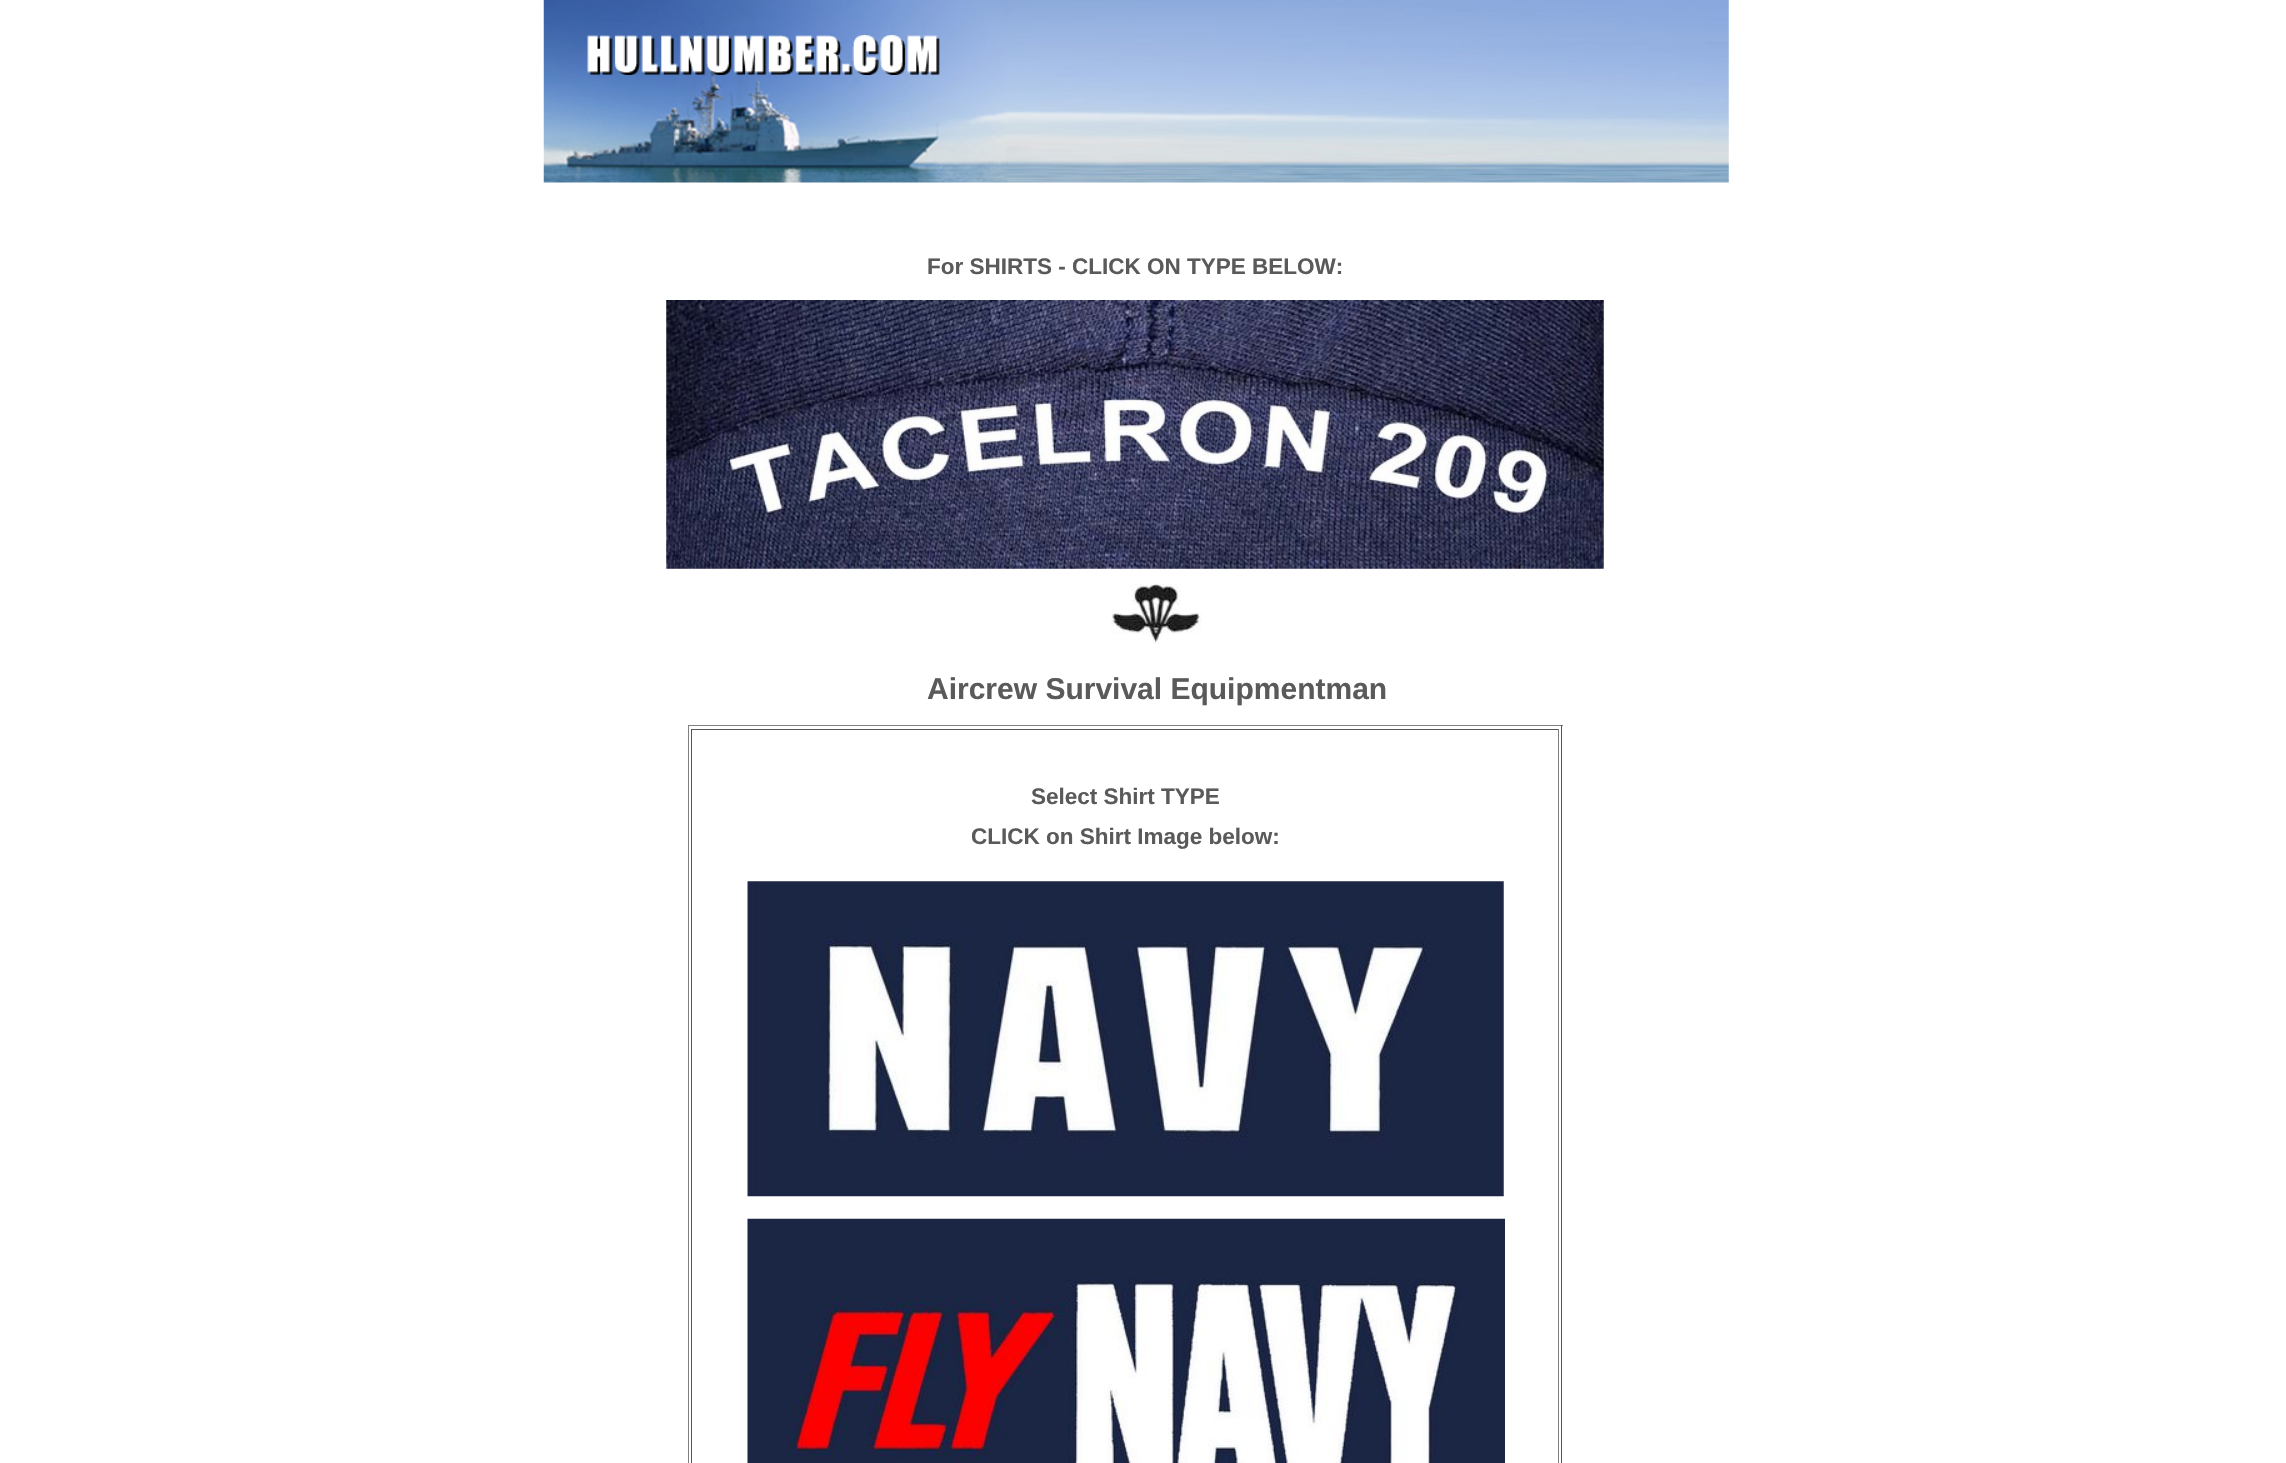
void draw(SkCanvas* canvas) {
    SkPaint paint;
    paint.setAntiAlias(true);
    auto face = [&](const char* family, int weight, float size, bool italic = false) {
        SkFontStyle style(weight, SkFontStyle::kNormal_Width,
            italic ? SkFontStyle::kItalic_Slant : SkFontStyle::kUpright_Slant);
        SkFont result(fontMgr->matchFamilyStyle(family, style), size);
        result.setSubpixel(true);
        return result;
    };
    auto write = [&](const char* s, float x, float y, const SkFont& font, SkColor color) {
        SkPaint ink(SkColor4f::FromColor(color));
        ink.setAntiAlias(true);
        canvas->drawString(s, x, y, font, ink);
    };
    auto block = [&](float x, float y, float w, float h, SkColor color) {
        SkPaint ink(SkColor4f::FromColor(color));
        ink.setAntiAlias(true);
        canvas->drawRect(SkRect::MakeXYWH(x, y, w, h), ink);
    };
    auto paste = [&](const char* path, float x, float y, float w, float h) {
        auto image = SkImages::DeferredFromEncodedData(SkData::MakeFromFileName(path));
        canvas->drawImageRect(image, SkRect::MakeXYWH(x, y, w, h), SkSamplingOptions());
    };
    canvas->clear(SK_ColorWHITE);
    paste("pic1.png", 543, 0, 1186, 183);
    paste("pic2.png", 587, 35, 353, 40);
    auto kFont1 = face("Liberation Sans", 700, 22.5f);
    write("For SHIRTS - CLICK ON TYPE BELOW:", 927, 274, kFont1, SkColorSetRGB(91, 90, 90));
    paste("pic3.png", 666, 300, 938, 269);
    paste("pic4.png", 1111, 583, 91, 61);
    auto kFont2 = face("Liberation Sans", 700, 30);
    write("Aircrew Survival Equipmentman", 927, 699, kFont2, SkColorSetRGB(91, 90, 90));
    block(688, 725, 875, 1, SkColorSetRGB(128, 128, 128));
    block(1561, 725, 1, 738, SkColorSetRGB(85, 85, 85));
    block(688, 725, 1, 738, SkColorSetRGB(128, 128, 128));
    block(691, 729, 868, 1, SkColorSetRGB(85, 85, 85));
    block(1558, 729, 1, 734, SkColorSetRGB(128, 128, 128));
    block(691, 729, 1, 734, SkColorSetRGB(85, 85, 85));
    write("Select Shirt TYPE", 1031, 804, kFont1, SkColorSetRGB(91, 90, 90));
    write("CLICK on Shirt Image below:", 971, 844, kFont1, SkColorSetRGB(91, 90, 90));
    paste("pic5.png", 747, 881, 757, 316);
    paste("pic6.png", 747, 1218, 758, 245);
}
